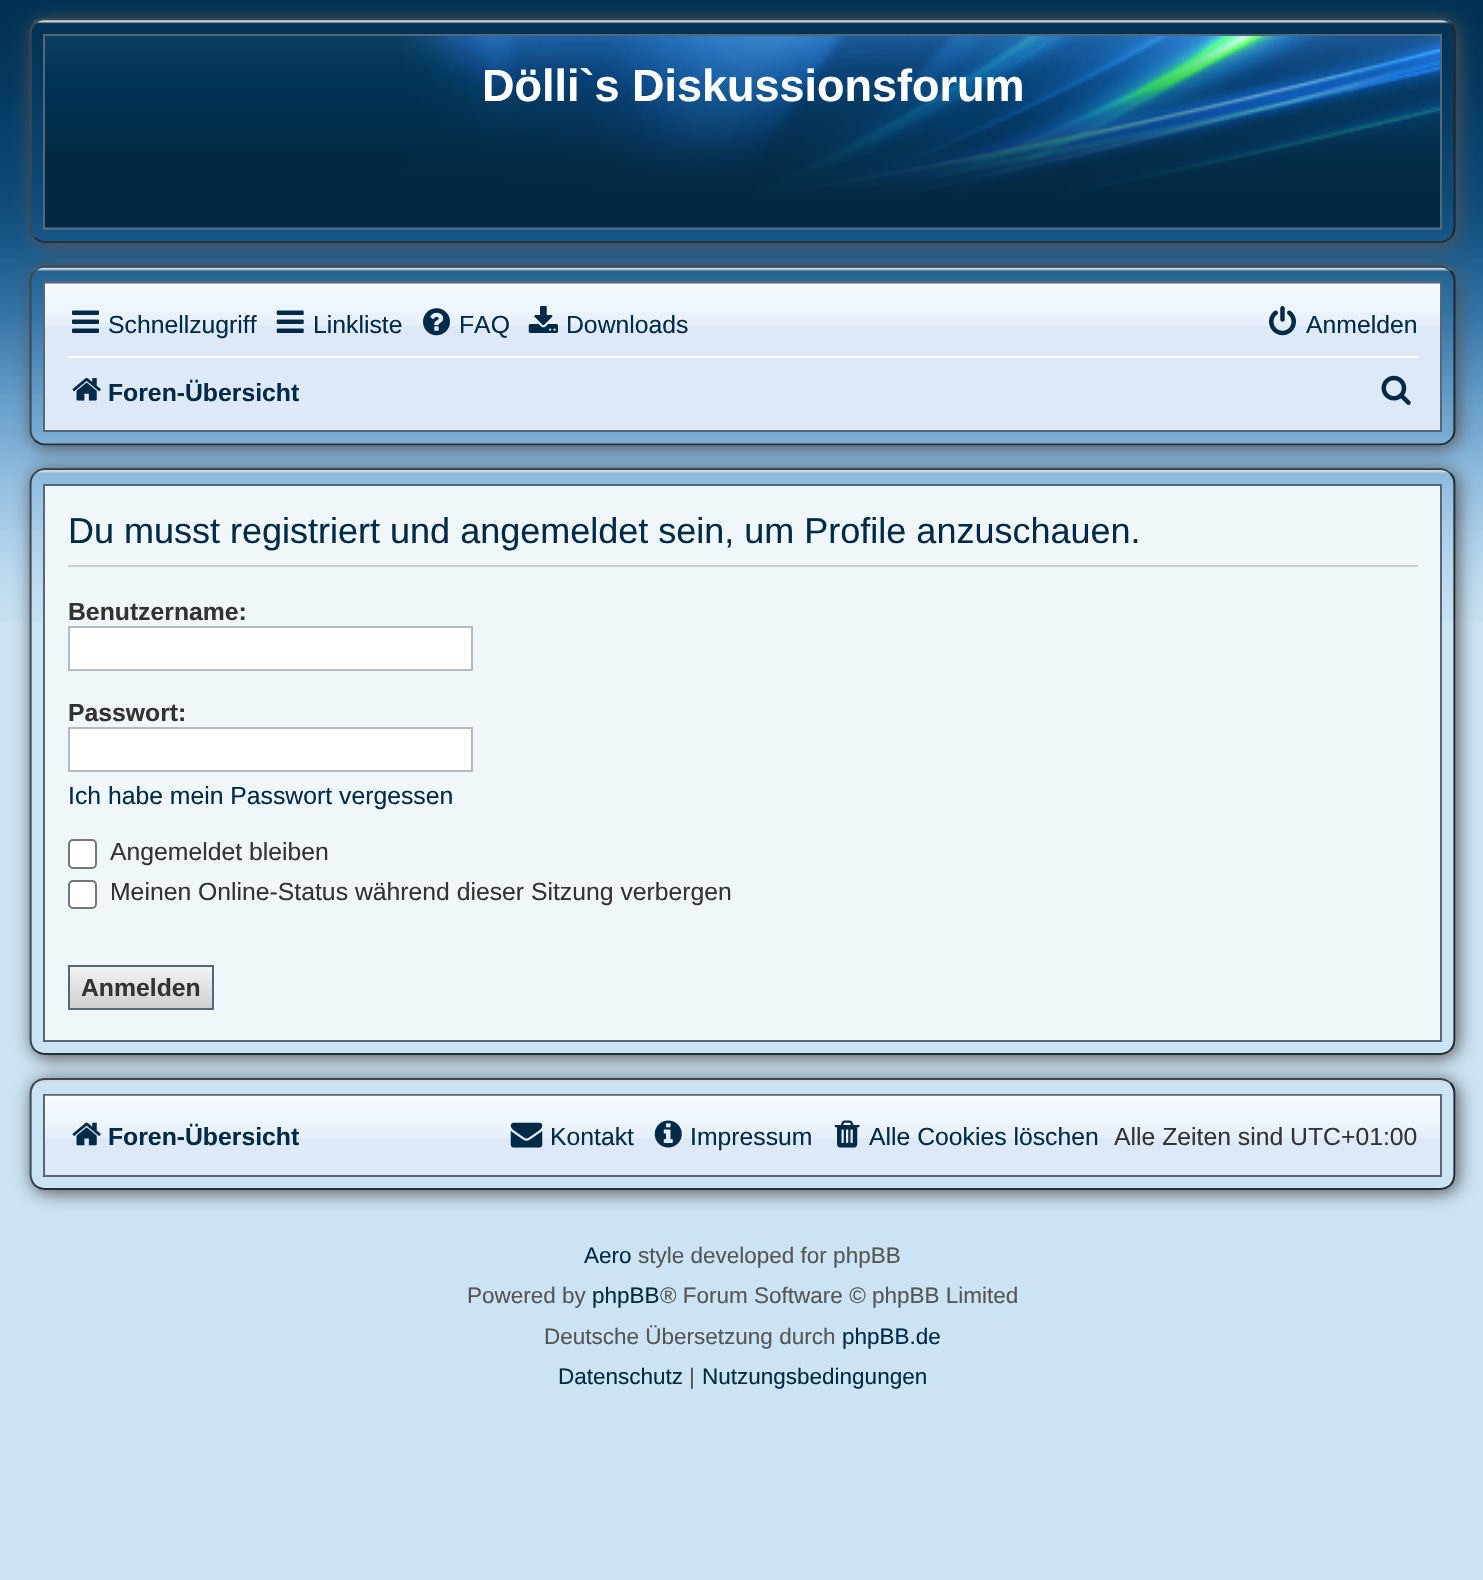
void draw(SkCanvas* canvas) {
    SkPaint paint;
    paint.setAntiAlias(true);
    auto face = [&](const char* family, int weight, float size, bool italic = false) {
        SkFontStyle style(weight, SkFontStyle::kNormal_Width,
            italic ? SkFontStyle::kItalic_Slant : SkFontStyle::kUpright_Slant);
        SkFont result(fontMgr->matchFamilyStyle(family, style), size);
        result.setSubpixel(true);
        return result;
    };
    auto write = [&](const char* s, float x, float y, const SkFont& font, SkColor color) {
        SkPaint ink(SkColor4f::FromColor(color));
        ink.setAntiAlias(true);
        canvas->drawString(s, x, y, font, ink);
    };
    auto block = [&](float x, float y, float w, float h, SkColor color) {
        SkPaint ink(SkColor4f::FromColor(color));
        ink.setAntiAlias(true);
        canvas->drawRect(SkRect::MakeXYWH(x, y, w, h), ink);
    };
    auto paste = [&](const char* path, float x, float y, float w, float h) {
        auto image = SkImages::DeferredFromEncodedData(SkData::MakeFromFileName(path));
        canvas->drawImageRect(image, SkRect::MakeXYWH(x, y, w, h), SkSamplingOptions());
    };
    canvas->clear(SkColorSetRGB(204, 227, 243));
    paste("pic1.png", 0, 0, 1483, 622);
    canvas->save();
    canvas->clipPath(SkPathBuilder(SkPathFillType::kEvenOdd).moveTo(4, 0).lineTo(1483, 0).lineTo(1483, 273).lineTo(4, 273).close().moveTo(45, 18).lineTo(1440, 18).cubicTo(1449, 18, 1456, 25, 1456, 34).lineTo(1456, 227).cubicTo(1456, 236, 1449, 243, 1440, 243).lineTo(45, 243).cubicTo(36, 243, 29, 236, 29, 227).lineTo(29, 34).cubicTo(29, 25, 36, 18, 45, 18).close().detach(), true);
    paint.setColor(SkColorSetRGB(85, 85, 85));
    paint.setMaskFilter(SkMaskFilter::MakeBlur(kNormal_SkBlurStyle, 9));
    canvas->drawRoundRect(SkRect::MakeXYWH(32, 20, 1426, 225), 16, 16, paint);
    paint.setMaskFilter(nullptr);
    canvas->restore();
    paste("pic2.png", 33, 20, 1419, 4);
    paint.setStyle(SkPaint::kStroke_Style);
    paint.setStrokeWidth(2.2f);
    paint.setColor(SkColorSetRGB(57, 72, 84));
    canvas->drawPath(SkPathBuilder().moveTo(34.5f, 23.5f).cubicTo(37.5f, 20.5f, 41, 19, 45, 19).lineTo(1440, 19).cubicTo(1444, 19, 1447.5f, 20.5f, 1450.5f, 23.5f).detach(), paint);
    paint.setColor(SkColorSetRGB(33, 41, 48));
    canvas->drawPath(SkPathBuilder().moveTo(1450.5f, 23.5f).cubicTo(1453, 26, 1454.5f, 30, 1454.5f, 33.5f).lineTo(1454.5f, 227).cubicTo(1454.5f, 231, 1453, 235, 1450.5f, 237.5f).detach(), paint);
    paint.setColor(SkColorSetRGB(38, 48, 56));
    canvas->drawPath(SkPathBuilder().moveTo(1450.5f, 237.5f).cubicTo(1447.5f, 240.5f, 1444, 242, 1440, 242).lineTo(45, 242).cubicTo(41, 242, 37.5f, 240.5f, 34.5f, 237.5f).detach(), paint);
    paint.setColor(SkColorSetRGB(58, 73, 85));
    canvas->drawPath(SkPathBuilder().moveTo(34.5f, 237.5f).cubicTo(32, 235, 30.5f, 231, 30.5f, 227).lineTo(30.5f, 34).cubicTo(30.5f, 30, 32, 26, 34.5f, 23.5f).detach(), paint);
    paint.setStrokeWidth(2);
    paint.setColor(SkColorSetRGB(86, 104, 119));
    canvas->drawRect(SkRect::MakeXYWH(44, 35, 1397, 194), paint);
    block(45, 150, 1395, 77, SkColorSetRGB(3, 41, 66));
    paste("pic3.png", 45, 36, 359, 114);
    paste("pic4.png", 404, 36, 1036, 157);
    auto kFont1 = face("Liberation Sans", 700, 45);
    write("Dölli`s Diskussionsforum", 482, 101, kFont1, SK_ColorWHITE);
    canvas->save();
    canvas->clipPath(SkPathBuilder(SkPathFillType::kEvenOdd).moveTo(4, 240).lineTo(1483, 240).lineTo(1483, 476).lineTo(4, 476).close().moveTo(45, 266).lineTo(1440, 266).cubicTo(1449, 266, 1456, 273, 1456, 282).lineTo(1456, 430).cubicTo(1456, 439, 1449, 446, 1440, 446).lineTo(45, 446).cubicTo(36, 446, 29, 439, 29, 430).lineTo(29, 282).cubicTo(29, 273, 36, 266, 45, 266).close().detach(), true);
    paint.setStyle(SkPaint::kFill_Style);
    paint.setColor(SkColorSetRGB(85, 85, 85));
    paint.setMaskFilter(SkMaskFilter::MakeBlur(kNormal_SkBlurStyle, 9));
    canvas->drawRoundRect(SkRect::MakeXYWH(32, 268, 1426, 180), 16, 16, paint);
    paint.setMaskFilter(nullptr);
    canvas->restore();
    paste("pic5.png", 33, 267, 1419, 4);
    paint.setStyle(SkPaint::kStroke_Style);
    paint.setStrokeWidth(2.2f);
    paint.setColor(SkColorSetRGB(57, 72, 84));
    canvas->drawPath(SkPathBuilder().moveTo(34.5f, 271).cubicTo(37.5f, 268, 41, 266.5f, 45, 266.5f).lineTo(1440, 266.5f).cubicTo(1444, 266.5f, 1447.5f, 268, 1450.5f, 271).detach(), paint);
    paint.setColor(SkColorSetRGB(33, 41, 48));
    canvas->drawPath(SkPathBuilder().moveTo(1450.5f, 271).cubicTo(1453, 273.5f, 1454.5f, 277.5f, 1454.5f, 281).lineTo(1454.5f, 430).cubicTo(1454.5f, 433.5f, 1453, 437.5f, 1450.5f, 440).detach(), paint);
    paint.setColor(SkColorSetRGB(38, 48, 56));
    canvas->drawPath(SkPathBuilder().moveTo(1450.5f, 440).cubicTo(1447.5f, 443, 1444, 444.5f, 1440, 444.5f).lineTo(45, 444.5f).cubicTo(41, 444.5f, 37.5f, 443, 34.5f, 440).detach(), paint);
    paint.setColor(SkColorSetRGB(58, 73, 85));
    canvas->drawPath(SkPathBuilder().moveTo(34.5f, 440).cubicTo(32, 437.5f, 30.5f, 433.5f, 30.5f, 430).lineTo(30.5f, 281).cubicTo(30.5f, 277.5f, 32, 273.5f, 34.5f, 271).detach(), paint);
    paint.setStrokeWidth(2);
    paint.setColor(SkColorSetRGB(86, 104, 119));
    canvas->drawRect(SkRect::MakeXYWH(44, 282, 1397, 149), paint);
    block(45, 326, 1395, 104, SkColorSetRGB(221, 233, 247));
    paste("pic6.png", 45, 283, 1395, 43);
    paste("pic7.png", 72, 310, 27, 23);
    auto kFont2 = face("Liberation Sans", 400, 24.75f);
    write("Schnellzugriff", 108, 333, kFont2, SkColorSetRGB(0, 42, 70));
    paste("pic8.png", 276, 310, 28, 23);
    write("Linkliste", 313, 333, kFont2, SkColorSetRGB(0, 42, 70));
    paste("pic9.png", 423, 308, 27, 28);
    write("FAQ", 459, 333, kFont2, SkColorSetRGB(0, 42, 70));
    paste("pic10.png", 528, 306, 30, 27);
    write("Downloads", 566, 333, kFont2, SkColorSetRGB(0, 42, 70));
    paste("pic11.png", 1269, 306, 27, 30);
    write("Anmelden", 1306, 333, kFont2, SkColorSetRGB(0, 42, 70));
    block(68, 356, 1350, 2, SK_ColorWHITE);
    paste("pic12.png", 72, 378, 29, 23);
    auto kFont3 = face("Liberation Sans", 700, 24.75f);
    write("Foren-Übersicht", 108, 401, kFont3, SkColorSetRGB(0, 42, 70));
    paste("pic13.png", 1381, 375, 30, 30);
    canvas->save();
    canvas->clipPath(SkPathBuilder(SkPathFillType::kEvenOdd).moveTo(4, 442).lineTo(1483, 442).lineTo(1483, 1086).lineTo(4, 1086).close().moveTo(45, 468).lineTo(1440, 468).cubicTo(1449, 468, 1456, 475, 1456, 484).lineTo(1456, 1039).cubicTo(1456, 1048, 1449, 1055, 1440, 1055).lineTo(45, 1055).cubicTo(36, 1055, 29, 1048, 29, 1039).lineTo(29, 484).cubicTo(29, 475, 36, 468, 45, 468).close().detach(), true);
    paint.setStyle(SkPaint::kFill_Style);
    paint.setColor(SkColorSetRGB(85, 85, 85));
    paint.setMaskFilter(SkMaskFilter::MakeBlur(kNormal_SkBlurStyle, 9));
    canvas->drawRoundRect(SkRect::MakeXYWH(32, 470, 1426, 588), 16, 16, paint);
    paint.setMaskFilter(nullptr);
    canvas->restore();
    paste("pic14.png", 33, 470, 1419, 4);
    paint.setStyle(SkPaint::kStroke_Style);
    paint.setStrokeWidth(2.2f);
    paint.setColor(SkColorSetRGB(57, 72, 84));
    canvas->drawPath(SkPathBuilder().moveTo(34.5f, 473.5f).cubicTo(37.5f, 470.5f, 41, 469, 45, 469).lineTo(1440, 469).cubicTo(1444, 469, 1447.5f, 470.5f, 1450.5f, 473.5f).detach(), paint);
    paint.setColor(SkColorSetRGB(33, 41, 48));
    canvas->drawPath(SkPathBuilder().moveTo(1450.5f, 473.5f).cubicTo(1453, 476, 1454.5f, 480, 1454.5f, 484).lineTo(1454.5f, 1039.5f).cubicTo(1454.5f, 1043.5f, 1453, 1047, 1450.5f, 1050).detach(), paint);
    paint.setColor(SkColorSetRGB(38, 48, 56));
    canvas->drawPath(SkPathBuilder().moveTo(1450.5f, 1050).cubicTo(1447.5f, 1052.5f, 1444, 1054, 1440, 1054).lineTo(45, 1054).cubicTo(41, 1054, 37.5f, 1052.5f, 34.5f, 1050).detach(), paint);
    paint.setColor(SkColorSetRGB(58, 73, 85));
    canvas->drawPath(SkPathBuilder().moveTo(34.5f, 1050).cubicTo(32, 1047, 30.5f, 1043.5f, 30.5f, 1039.5f).lineTo(30.5f, 484).cubicTo(30.5f, 480, 32, 476, 34.5f, 473.5f).detach(), paint);
    paint.setStrokeWidth(2);
    paint.setColor(SkColorSetRGB(86, 104, 119));
    canvas->drawRect(SkRect::MakeXYWH(44, 485, 1397, 556), paint);
    block(45, 486, 1395, 554, SkColorSetRGB(239, 247, 251));
    block(68, 565, 1350, 2, SkColorSetRGB(204, 204, 204));
    auto kFont4 = face("Liberation Sans", 400, 36);
    write("Du musst registriert und angemeldet sein, um Profile anzuschauen.", 68, 543, kFont4, SkColorSetRGB(0, 42, 70));
    write("Benutzername:", 68, 620, kFont3, SkColorSetRGB(51, 51, 51));
    paint.setStyle(SkPaint::kFill_Style);
    paint.setColor(SK_ColorWHITE);
    canvas->drawRect(SkRect::MakeXYWH(69, 627, 403, 43), paint);
    paint.setStyle(SkPaint::kStroke_Style);
    paint.setColor(SkColorSetRGB(180, 186, 192));
    canvas->drawRect(SkRect::MakeXYWH(69, 627, 403, 43), paint);
    write("Passwort:", 68, 721, kFont3, SkColorSetRGB(51, 51, 51));
    paint.setStyle(SkPaint::kFill_Style);
    paint.setColor(SK_ColorWHITE);
    canvas->drawRect(SkRect::MakeXYWH(69, 728, 403, 43), paint);
    paint.setStyle(SkPaint::kStroke_Style);
    paint.setColor(SkColorSetRGB(180, 186, 192));
    canvas->drawRect(SkRect::MakeXYWH(69, 728, 403, 43), paint);
    write("Ich habe mein Passwort vergessen", 68, 804, kFont2, SkColorSetRGB(0, 42, 70));
    paint.setStyle(SkPaint::kFill_Style);
    paint.setColor(SK_ColorWHITE);
    canvas->drawRoundRect(SkRect::MakeXYWH(69, 840, 27, 28), 4, 4, paint);
    paint.setStyle(SkPaint::kStroke_Style);
    paint.setColor(SkColorSetRGB(118, 118, 118));
    canvas->drawRoundRect(SkRect::MakeXYWH(69, 840, 27, 28), 4, 4, paint);
    write("Angemeldet bleiben", 110, 860, kFont2, SkColorSetRGB(51, 51, 51));
    paint.setStyle(SkPaint::kFill_Style);
    paint.setColor(SK_ColorWHITE);
    canvas->drawRoundRect(SkRect::MakeXYWH(69, 881, 27, 27), 4, 4, paint);
    paint.setStyle(SkPaint::kStroke_Style);
    paint.setColor(SkColorSetRGB(118, 118, 118));
    canvas->drawRoundRect(SkRect::MakeXYWH(69, 881, 27, 27), 4, 4, paint);
    write("Meinen Online-Status während dieser Sitzung verbergen", 110, 900, kFont2, SkColorSetRGB(51, 51, 51));
    block(70, 967, 142, 1, SkColorSetRGB(242, 242, 242));
    paint.setStyle(SkPaint::kFill_Style);
    {
        const SkColor colors[] = {SkColorSetRGB(242, 242, 242), SkColorSetRGB(207, 207, 207)};
        const float stops[] = {0, 1};
        const SkPoint ends[] = {{141, 968}, {141, 1008}};
        paint.setShader(SkGradientShader::MakeLinear(ends, colors, stops, 2, SkTileMode::kClamp));
        paint.setAlpha(255);
    }
    canvas->drawRect(SkRect::MakeXYWH(70, 968, 142, 40), paint);
    paint.setStyle(SkPaint::kStroke_Style);
    paint.setShader(nullptr);
    paint.setColor(SkColorSetRGB(86, 104, 119));
    canvas->drawRect(SkRect::MakeXYWH(69, 966, 144, 43), paint);
    write("Anmelden", 81, 996, kFont3, SkColorSetRGB(51, 51, 51));
    canvas->save();
    canvas->clipPath(SkPathBuilder(SkPathFillType::kEvenOdd).moveTo(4, 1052).lineTo(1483, 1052).lineTo(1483, 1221).lineTo(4, 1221).close().moveTo(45, 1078).lineTo(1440, 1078).cubicTo(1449, 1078, 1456, 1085, 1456, 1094).lineTo(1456, 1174).cubicTo(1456, 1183, 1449, 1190, 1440, 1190).lineTo(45, 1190).cubicTo(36, 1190, 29, 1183, 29, 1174).lineTo(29, 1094).cubicTo(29, 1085, 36, 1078, 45, 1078).close().detach(), true);
    paint.setStyle(SkPaint::kFill_Style);
    paint.setColor(SkColorSetRGB(85, 85, 85));
    paint.setMaskFilter(SkMaskFilter::MakeBlur(kNormal_SkBlurStyle, 9));
    canvas->drawRoundRect(SkRect::MakeXYWH(32, 1080, 1426, 113), 16, 16, paint);
    paint.setMaskFilter(nullptr);
    canvas->restore();
    paste("pic15.png", 33, 1080, 1419, 3);
    paint.setStyle(SkPaint::kStroke_Style);
    paint.setStrokeWidth(2.2f);
    paint.setColor(SkColorSetRGB(57, 72, 84));
    canvas->drawPath(SkPathBuilder().moveTo(34.5f, 1083).cubicTo(37.5f, 1080.5f, 41, 1079, 45, 1079).lineTo(1440, 1079).cubicTo(1444, 1079, 1447.5f, 1080.5f, 1450.5f, 1083).detach(), paint);
    paint.setColor(SkColorSetRGB(33, 41, 48));
    canvas->drawPath(SkPathBuilder().moveTo(1450.5f, 1083).cubicTo(1453, 1086, 1454.5f, 1089.5f, 1454.5f, 1093.5f).lineTo(1454.5f, 1174.5f).cubicTo(1454.5f, 1178.5f, 1453, 1182, 1450.5f, 1185).detach(), paint);
    paint.setColor(SkColorSetRGB(38, 48, 56));
    canvas->drawPath(SkPathBuilder().moveTo(1450.5f, 1185).cubicTo(1447.5f, 1187.5f, 1444, 1189, 1440, 1189).lineTo(45, 1189).cubicTo(41, 1189, 37.5f, 1187.5f, 34.5f, 1185).detach(), paint);
    paint.setColor(SkColorSetRGB(58, 73, 85));
    canvas->drawPath(SkPathBuilder().moveTo(34.5f, 1185).cubicTo(32, 1182, 30.5f, 1178.5f, 30.5f, 1174.5f).lineTo(30.5f, 1093.5f).cubicTo(30.5f, 1089.5f, 32, 1086, 34.5f, 1083).detach(), paint);
    paint.setStrokeWidth(2);
    paint.setColor(SkColorSetRGB(86, 104, 119));
    canvas->drawRect(SkRect::MakeXYWH(44, 1095, 1397, 81), paint);
    block(45, 1138, 1395, 37, SkColorSetRGB(221, 233, 247));
    paste("pic16.png", 45, 1095, 1395, 43);
    paste("pic17.png", 72, 1122, 29, 24);
    write("Foren-Übersicht", 108, 1145, kFont3, SkColorSetRGB(0, 42, 70));
    paste("pic18.png", 510, 1122, 33, 26);
    write("Kontakt", 550, 1145, kFont2, SkColorSetRGB(0, 42, 70));
    paste("pic19.png", 654, 1120, 28, 28);
    write("Impressum", 690, 1145, kFont2, SkColorSetRGB(0, 42, 70));
    paste("pic20.png", 834, 1120, 26, 28);
    write("Alle Cookies löschen", 869, 1145, kFont2, SkColorSetRGB(0, 42, 70));
    write("Alle Zeiten sind UTC+01:00", 1114, 1145, kFont2, SkColorSetRGB(51, 51, 51));
    auto kFont5 = face("Liberation Sans", 400, 22.5f);
    write("Aero", 584, 1263, kFont5, SkColorSetRGB(0, 42, 70));
    write("style developed for phpBB", 638, 1263, kFont5, SkColorSetRGB(85, 85, 85));
    write("Powered by", 467, 1303, kFont5, SkColorSetRGB(85, 85, 85));
    write("phpBB", 592, 1303, kFont5, SkColorSetRGB(0, 42, 70));
    write("® Forum Software © phpBB Limited", 660, 1303, kFont5, SkColorSetRGB(85, 85, 85));
    write("Deutsche Übersetzung durch", 544, 1344, kFont5, SkColorSetRGB(85, 85, 85));
    write("phpBB.de", 842, 1344, kFont5, SkColorSetRGB(0, 42, 70));
    write("Datenschutz", 558, 1384, kFont5, SkColorSetRGB(0, 42, 70));
    write("|", 689, 1384, kFont5, SkColorSetRGB(85, 85, 85));
    write("Nutzungsbedingungen", 702, 1384, kFont5, SkColorSetRGB(0, 42, 70));
}
